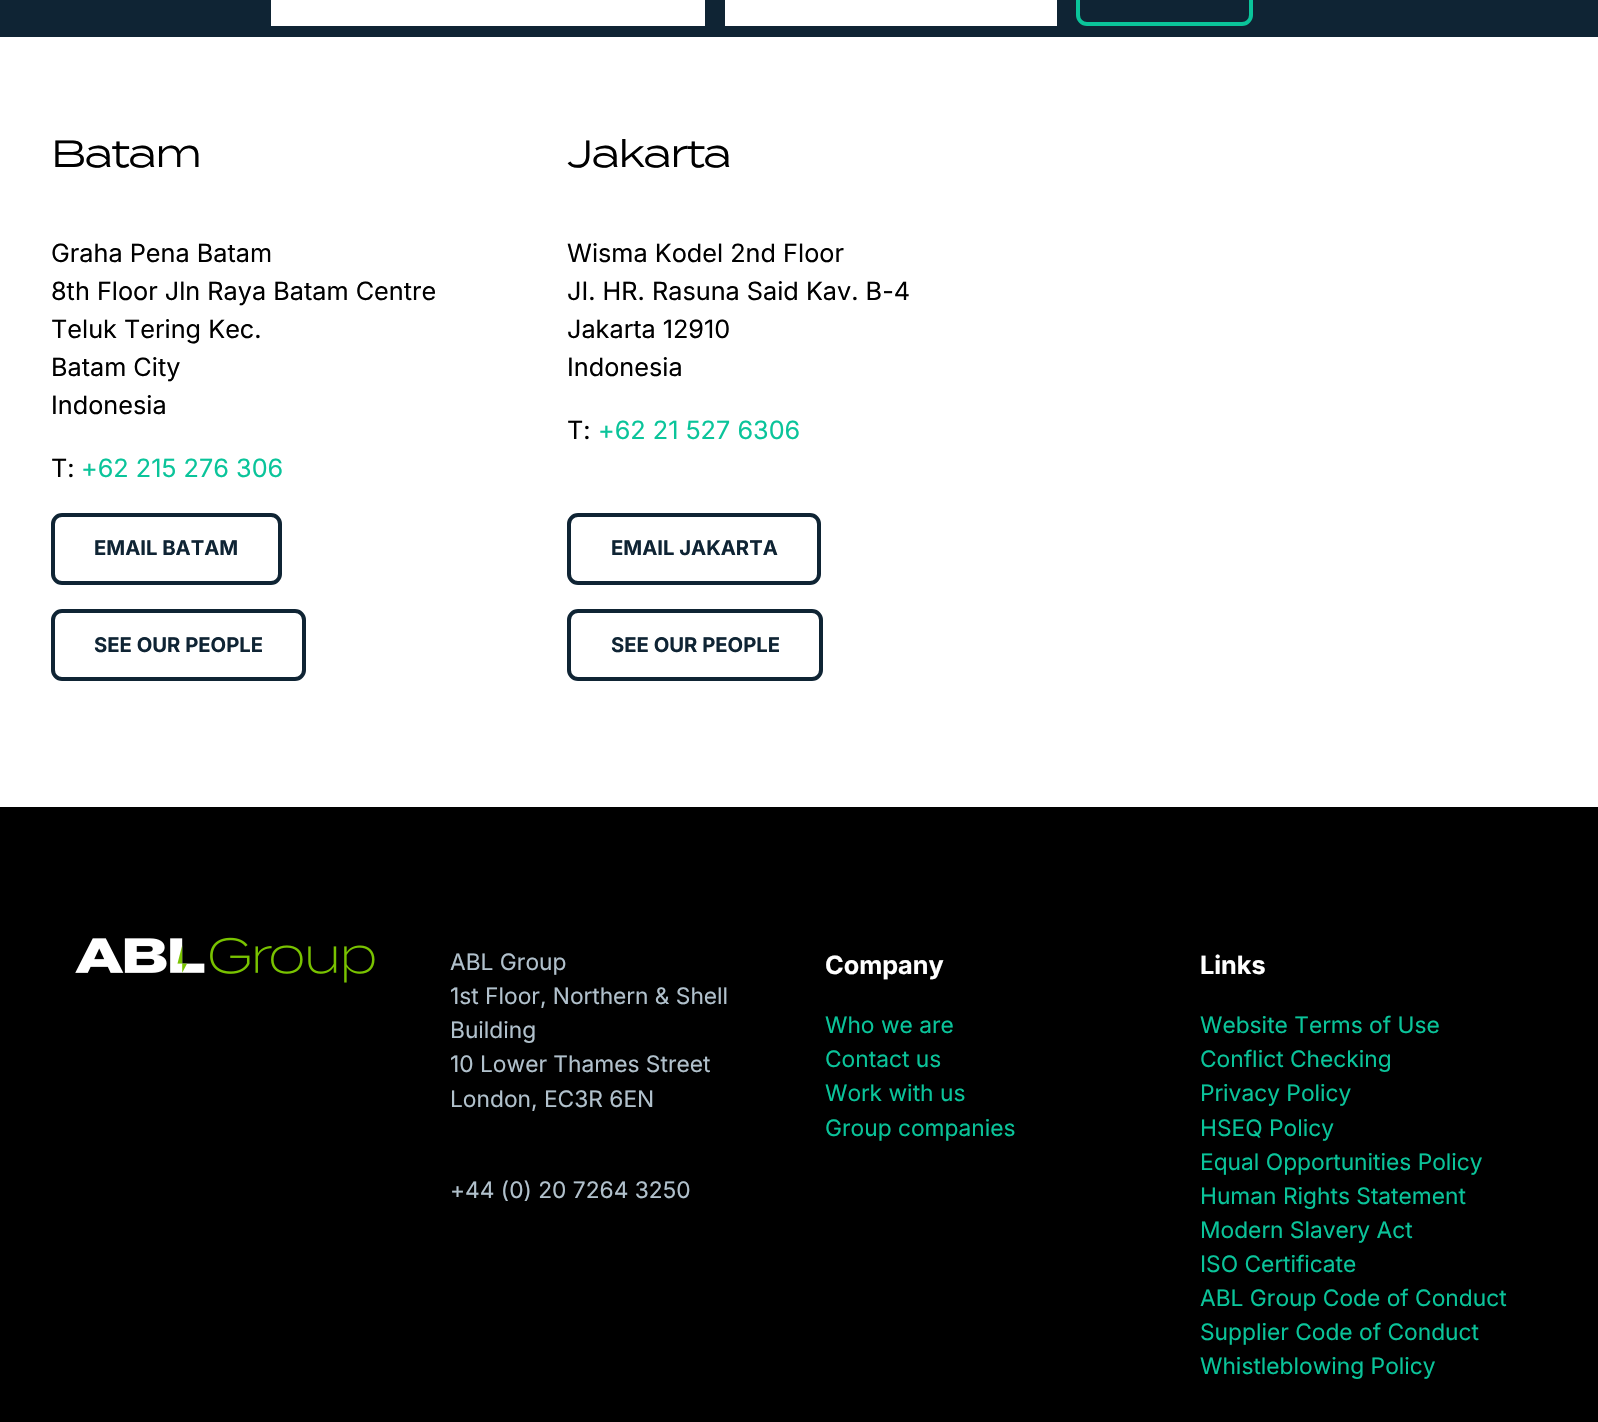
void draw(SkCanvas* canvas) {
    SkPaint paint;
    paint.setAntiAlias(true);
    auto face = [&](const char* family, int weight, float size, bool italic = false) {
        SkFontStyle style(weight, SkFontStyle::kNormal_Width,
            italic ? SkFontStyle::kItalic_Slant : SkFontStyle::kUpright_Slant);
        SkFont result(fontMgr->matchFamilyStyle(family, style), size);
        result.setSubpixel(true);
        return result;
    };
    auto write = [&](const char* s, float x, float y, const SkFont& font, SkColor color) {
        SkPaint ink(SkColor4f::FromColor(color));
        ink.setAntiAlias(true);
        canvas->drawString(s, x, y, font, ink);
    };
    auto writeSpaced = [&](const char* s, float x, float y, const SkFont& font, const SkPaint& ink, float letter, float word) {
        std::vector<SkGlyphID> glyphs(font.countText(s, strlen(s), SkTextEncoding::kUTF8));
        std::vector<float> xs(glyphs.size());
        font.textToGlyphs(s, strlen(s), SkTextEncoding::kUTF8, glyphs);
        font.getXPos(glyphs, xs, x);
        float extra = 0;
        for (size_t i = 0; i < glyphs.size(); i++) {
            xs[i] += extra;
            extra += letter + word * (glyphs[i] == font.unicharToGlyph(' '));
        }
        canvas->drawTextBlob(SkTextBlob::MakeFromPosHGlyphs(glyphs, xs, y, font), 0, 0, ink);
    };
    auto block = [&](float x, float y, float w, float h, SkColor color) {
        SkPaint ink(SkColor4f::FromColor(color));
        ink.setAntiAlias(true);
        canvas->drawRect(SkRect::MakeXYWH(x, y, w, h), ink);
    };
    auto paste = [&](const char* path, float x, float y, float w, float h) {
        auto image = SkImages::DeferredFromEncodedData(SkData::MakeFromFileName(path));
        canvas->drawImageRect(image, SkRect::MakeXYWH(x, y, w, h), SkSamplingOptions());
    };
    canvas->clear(SK_ColorWHITE);
    block(0, 0, 1598, 37, SkColorSetRGB(15, 36, 52));
    block(271, 0, 434, 26, SK_ColorWHITE);
    block(725, 0, 332, 26, SK_ColorWHITE);
    paint.setStyle(SkPaint::kStroke_Style);
    paint.setStrokeWidth(4);
    paint.setColor(SkColorSetRGB(10, 196, 154));
    canvas->drawRoundRect(SkRect::MakeXYWH(1078, -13, 173, 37), 9, 9, paint);
    auto kFont1 = face("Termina", 400, 38);
    paint.setStyle(SkPaint::kFill_Style);
    paint.setColor(SK_ColorBLACK);
    writeSpaced("Batam", 51, 167, kFont1, paint, -1.5f, 0);
    auto kFont2 = face("Inter", 400, 25.25f);
    write("Graha Pena Batam", 51, 262, kFont2, SK_ColorBLACK);
    write("8th Floor Jln Raya Batam Centre", 51, 300, kFont2, SK_ColorBLACK);
    write("Teluk Tering Kec.", 51, 338, kFont2, SK_ColorBLACK);
    write("Batam City", 51, 376, kFont2, SK_ColorBLACK);
    write("Indonesia", 51, 414, kFont2, SK_ColorBLACK);
    write("T:", 51, 477, kFont2, SK_ColorBLACK);
    write("+62 215 276 306", 81, 477, kFont2, SkColorSetRGB(10, 196, 154));
    paint.setStyle(SkPaint::kStroke_Style);
    paint.setColor(SkColorSetRGB(15, 36, 52));
    canvas->drawRoundRect(SkRect::MakeXYWH(53, 515, 227, 68), 9, 9, paint);
    auto kFont3 = face("Inter", 700, 20.25f);
    write("EMAIL BATAM", 94, 555, kFont3, SkColorSetRGB(15, 36, 52));
    canvas->drawRoundRect(SkRect::MakeXYWH(53, 611, 251, 68), 9, 9, paint);
    write("SEE OUR PEOPLE", 94, 652, kFont3, SkColorSetRGB(15, 36, 52));
    paint.setStyle(SkPaint::kFill_Style);
    paint.setColor(SK_ColorBLACK);
    writeSpaced("Jakarta", 567, 167, kFont1, paint, -1.5f, 0);
    write("Wisma Kodel 2nd Floor", 567, 262, kFont2, SK_ColorBLACK);
    write("JI. HR. Rasuna Said Kav. B-4", 567, 300, kFont2, SK_ColorBLACK);
    write("Jakarta 12910", 567, 338, kFont2, SK_ColorBLACK);
    write("Indonesia", 567, 376, kFont2, SK_ColorBLACK);
    write("T:", 567, 439, kFont2, SK_ColorBLACK);
    write("+62 21 527 6306", 598, 439, kFont2, SkColorSetRGB(10, 196, 154));
    paint.setStyle(SkPaint::kStroke_Style);
    paint.setColor(SkColorSetRGB(15, 36, 52));
    canvas->drawRoundRect(SkRect::MakeXYWH(569, 515, 250, 68), 9, 9, paint);
    write("EMAIL JAKARTA", 611, 555, kFont3, SkColorSetRGB(15, 36, 52));
    canvas->drawRoundRect(SkRect::MakeXYWH(569, 611, 252, 68), 9, 9, paint);
    write("SEE OUR PEOPLE", 611, 652, kFont3, SkColorSetRGB(15, 36, 52));
    block(0, 807, 1598, 615, SK_ColorBLACK);
    paste("pic1.png", 75, 937, 300, 46);
    auto kFont4 = face("Inter", 400, 22.75f);
    write("ABL Group", 450, 970, kFont4, SkColorSetRGB(177, 193, 204));
    write("1st Floor, Northern & Shell", 450, 1004, kFont4, SkColorSetRGB(177, 193, 204));
    write("Building", 450, 1038, kFont4, SkColorSetRGB(177, 193, 204));
    write("10 Lower Thames Street", 450, 1072, kFont4, SkColorSetRGB(177, 193, 204));
    write("London, EC3R 6EN", 450, 1107, kFont4, SkColorSetRGB(177, 193, 204));
    write("+44 (0) 20 7264 3250", 450, 1198, kFont4, SkColorSetRGB(177, 193, 204));
    auto kFont5 = face("Inter", 700, 25.25f);
    write("Company", 825, 974, kFont5, SK_ColorWHITE);
    write("Who we are", 825, 1033, kFont4, SkColorSetRGB(10, 196, 154));
    write("Contact us", 825, 1067, kFont4, SkColorSetRGB(10, 196, 154));
    write("Work with us", 825, 1101, kFont4, SkColorSetRGB(10, 196, 154));
    write("Group companies", 825, 1136, kFont4, SkColorSetRGB(10, 196, 154));
    write("Links", 1200, 974, kFont5, SK_ColorWHITE);
    write("Website Terms of Use", 1200, 1033, kFont4, SkColorSetRGB(10, 196, 154));
    write("Conflict Checking", 1200, 1067, kFont4, SkColorSetRGB(10, 196, 154));
    write("Privacy Policy", 1200, 1101, kFont4, SkColorSetRGB(10, 196, 154));
    write("HSEQ Policy", 1200, 1136, kFont4, SkColorSetRGB(10, 196, 154));
    write("Equal Opportunities Policy", 1200, 1170, kFont4, SkColorSetRGB(10, 196, 154));
    write("Human Rights Statement", 1200, 1204, kFont4, SkColorSetRGB(10, 196, 154));
    write("Modern Slavery Act", 1200, 1238, kFont4, SkColorSetRGB(10, 196, 154));
    write("ISO Certificate", 1200, 1272, kFont4, SkColorSetRGB(10, 196, 154));
    write("ABL Group Code of Conduct", 1200, 1306, kFont4, SkColorSetRGB(10, 196, 154));
    write("Supplier Code of Conduct", 1200, 1340, kFont4, SkColorSetRGB(10, 196, 154));
    write("Whistleblowing Policy", 1200, 1374, kFont4, SkColorSetRGB(10, 196, 154));
}
